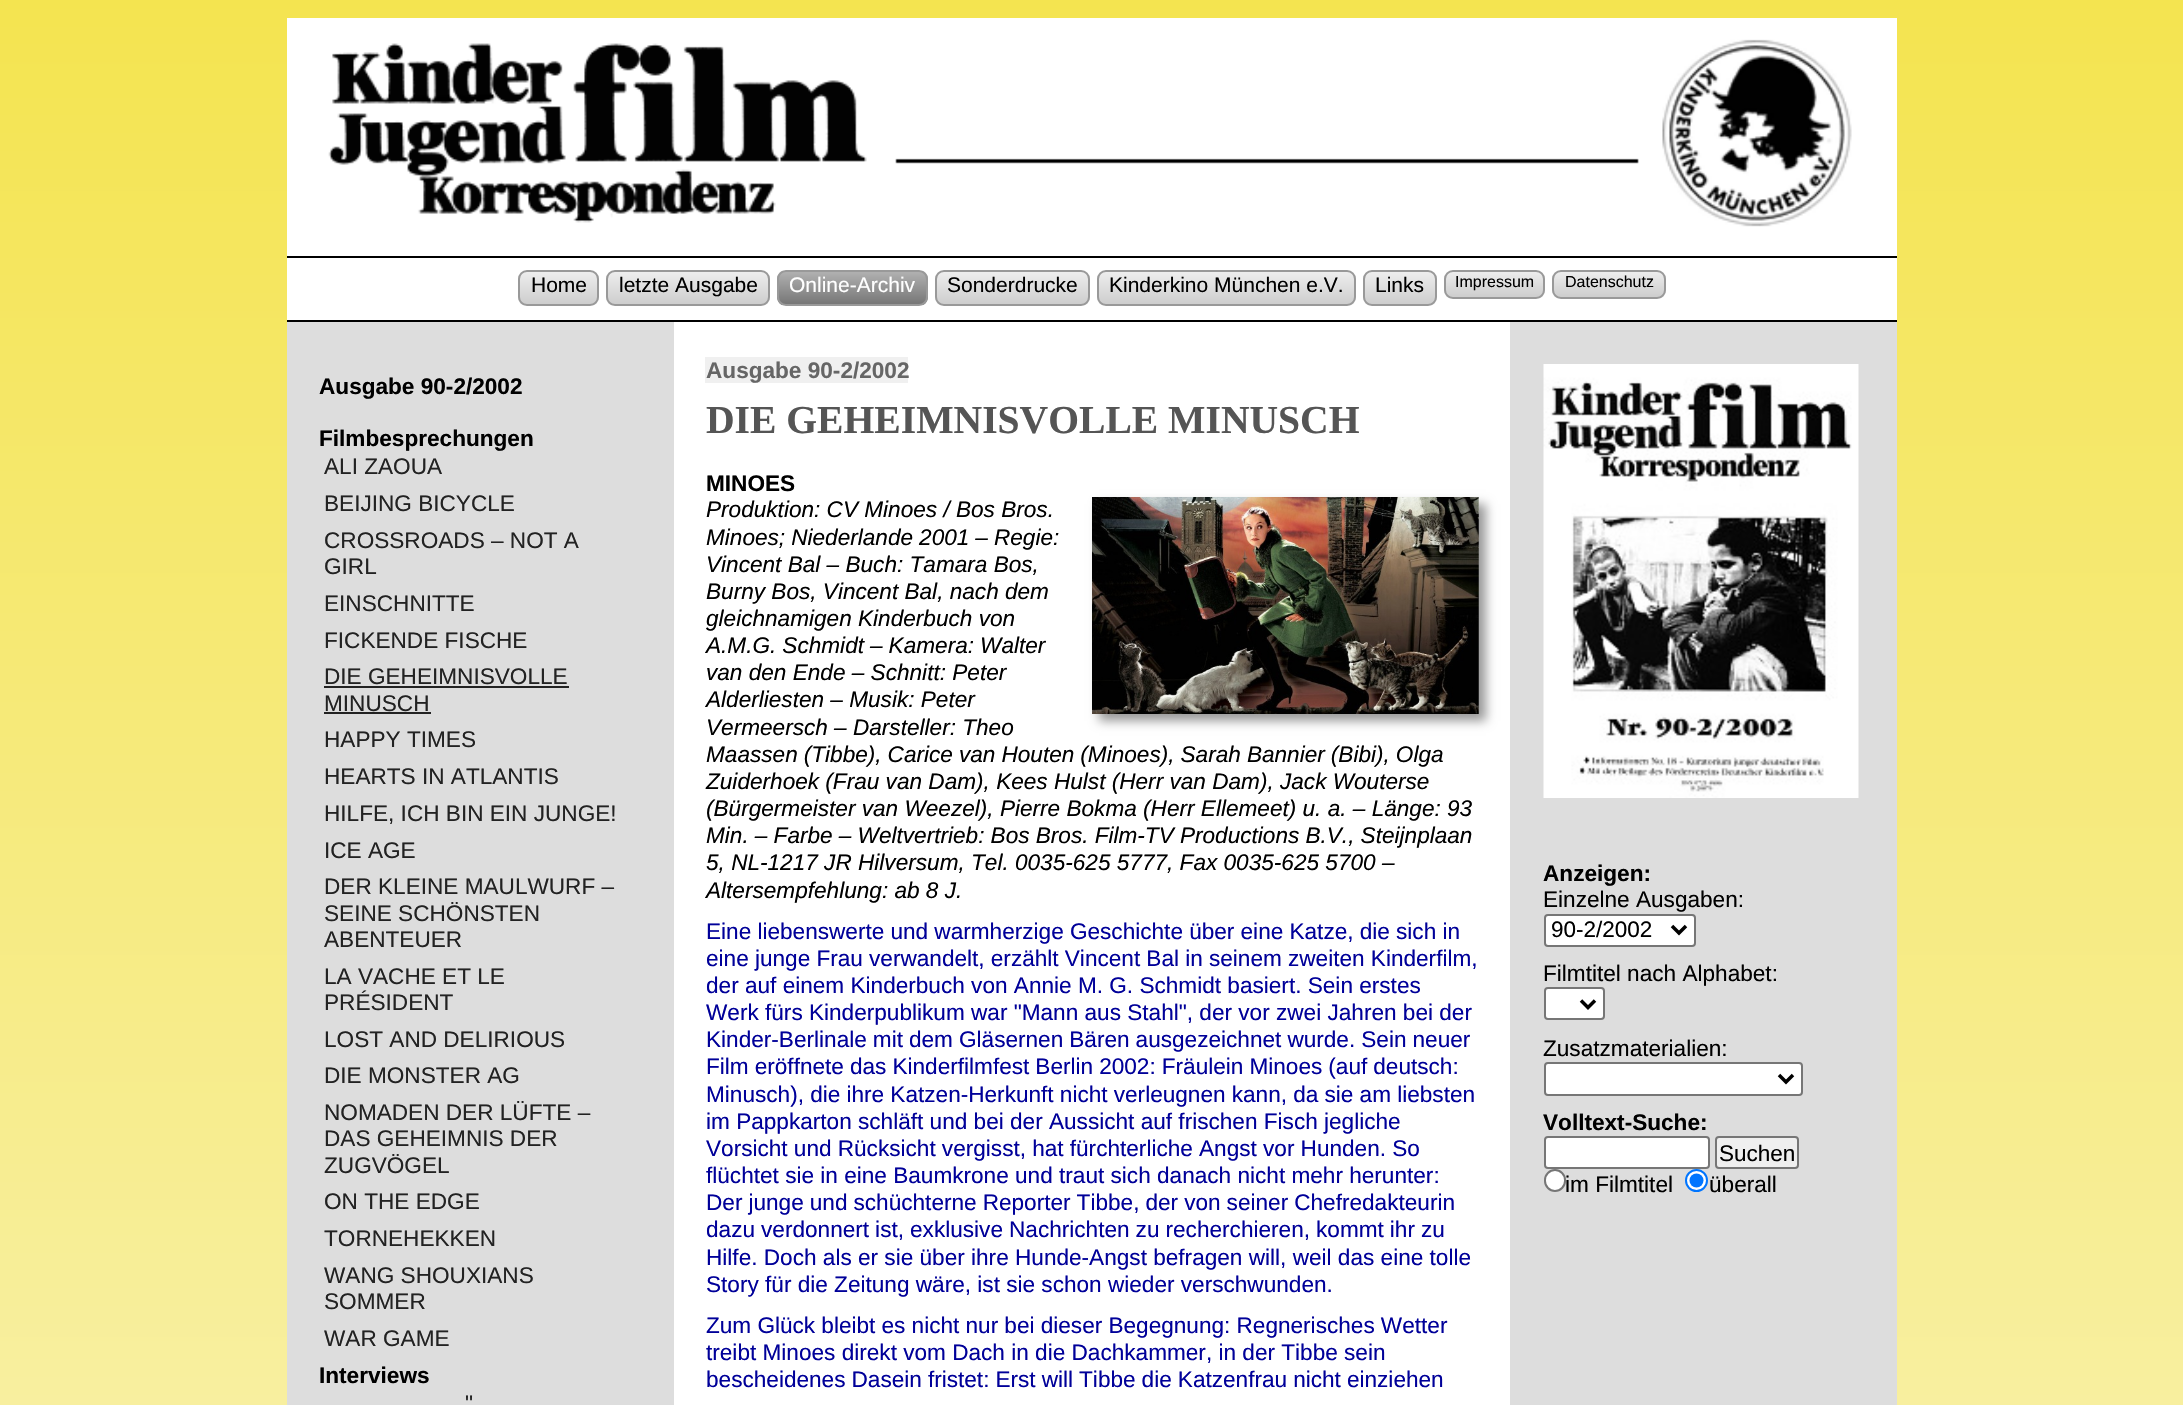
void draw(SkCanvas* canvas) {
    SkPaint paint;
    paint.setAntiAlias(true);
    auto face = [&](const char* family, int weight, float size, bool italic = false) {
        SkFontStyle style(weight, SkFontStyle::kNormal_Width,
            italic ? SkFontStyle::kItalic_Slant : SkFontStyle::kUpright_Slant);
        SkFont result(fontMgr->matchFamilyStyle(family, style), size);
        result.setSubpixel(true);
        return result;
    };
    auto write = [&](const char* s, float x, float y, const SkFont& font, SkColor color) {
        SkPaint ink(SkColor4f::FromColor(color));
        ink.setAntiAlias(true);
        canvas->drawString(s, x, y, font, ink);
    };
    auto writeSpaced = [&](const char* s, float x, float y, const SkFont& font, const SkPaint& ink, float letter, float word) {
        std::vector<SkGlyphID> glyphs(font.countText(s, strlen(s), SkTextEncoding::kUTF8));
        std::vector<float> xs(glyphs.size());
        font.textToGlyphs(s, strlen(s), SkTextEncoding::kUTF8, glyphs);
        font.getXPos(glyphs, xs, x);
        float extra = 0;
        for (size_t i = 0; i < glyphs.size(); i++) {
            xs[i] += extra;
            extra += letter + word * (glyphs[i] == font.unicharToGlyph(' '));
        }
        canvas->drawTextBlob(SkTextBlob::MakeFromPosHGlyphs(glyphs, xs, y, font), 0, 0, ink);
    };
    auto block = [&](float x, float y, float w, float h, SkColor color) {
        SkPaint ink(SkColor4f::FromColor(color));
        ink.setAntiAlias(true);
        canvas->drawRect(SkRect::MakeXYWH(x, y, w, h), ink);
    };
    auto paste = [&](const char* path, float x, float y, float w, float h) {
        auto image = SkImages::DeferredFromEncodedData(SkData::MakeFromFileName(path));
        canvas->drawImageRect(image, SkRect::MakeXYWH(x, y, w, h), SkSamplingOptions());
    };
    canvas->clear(SK_ColorWHITE);
    {
        const SkColor colors[] = {SkColorSetRGB(244, 228, 80), SkColorSetRGB(252, 252, 252)};
        const float stops[] = {0, 1};
        const SkPoint ends[] = {{1092, 0}, {1092, 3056}};
        paint.setShader(SkGradientShader::MakeLinear(ends, colors, stops, 2, SkTileMode::kClamp));
        paint.setAlpha(255);
    }
    canvas->drawRect(SkRect::MakeXYWH(0, 0, 2183, 1405), paint);
    block(287, 322, 1610, 1083, SkColorSetRGB(221, 221, 221));
    block(287, 18, 1610, 238, SK_ColorWHITE);
    paste("pic1.png", 328, 39, 1524, 188);
    block(287, 258, 1610, 62, SK_ColorWHITE);
    block(287, 256, 1610, 2, SK_ColorBLACK);
    block(287, 320, 1610, 2, SK_ColorBLACK);
    canvas->save();
    canvas->clipPath(SkPathBuilder().moveTo(527, 270).lineTo(590, 270).cubicTo(595, 270, 599, 274, 599, 279).lineTo(599, 297).cubicTo(599, 302, 595, 306, 590, 306).lineTo(527, 306).cubicTo(522, 306, 518, 302, 518, 297).lineTo(518, 279).cubicTo(518, 274, 522, 270, 527, 270).close().detach(), true);
    {
        const SkColor colors[] = {SkColorSetRGB(238, 238, 238), SkColorSetRGB(204, 204, 204)};
        const float stops[] = {0, 1};
        const SkPoint ends[] = {{558, 271}, {558, 305}};
        paint.setShader(SkGradientShader::MakeLinear(ends, colors, stops, 2, SkTileMode::kClamp));
        paint.setAlpha(255);
    }
    canvas->drawRect(SkRect::MakeXYWH(518, 271, 81, 34), paint);
    canvas->restore();
    paint.setStyle(SkPaint::kStroke_Style);
    paint.setStrokeWidth(2);
    paint.setShader(nullptr);
    paint.setColor(SkColorSetRGB(153, 153, 153));
    canvas->drawRoundRect(SkRect::MakeXYWH(519, 271, 79, 34), 8, 8, paint);
    auto kFont1 = face("Liberation Sans", 400, 21);
    write("Home", 531, 292, kFont1, SK_ColorBLACK);
    canvas->save();
    canvas->clipPath(SkPathBuilder().moveTo(615, 270).lineTo(761, 270).cubicTo(766, 270, 770, 274, 770, 279).lineTo(770, 297).cubicTo(770, 302, 766, 306, 761, 306).lineTo(615, 306).cubicTo(610, 306, 606, 302, 606, 297).lineTo(606, 279).cubicTo(606, 274, 610, 270, 615, 270).close().detach(), true);
    paint.setStyle(SkPaint::kFill_Style);
    {
        const SkColor colors[] = {SkColorSetRGB(238, 238, 238), SkColorSetRGB(204, 204, 204)};
        const float stops[] = {0, 1};
        const SkPoint ends[] = {{688, 271}, {688, 305}};
        paint.setShader(SkGradientShader::MakeLinear(ends, colors, stops, 2, SkTileMode::kClamp));
        paint.setAlpha(255);
    }
    canvas->drawRect(SkRect::MakeXYWH(606, 271, 164, 34), paint);
    canvas->restore();
    paint.setStyle(SkPaint::kStroke_Style);
    paint.setShader(nullptr);
    paint.setColor(SkColorSetRGB(153, 153, 153));
    canvas->drawRoundRect(SkRect::MakeXYWH(607, 271, 162, 34), 8, 8, paint);
    write("letzte Ausgabe", 619, 292, kFont1, SK_ColorBLACK);
    canvas->save();
    canvas->clipPath(SkPathBuilder().moveTo(786, 270).lineTo(919, 270).cubicTo(924, 270, 928, 274, 928, 279).lineTo(928, 297).cubicTo(928, 302, 924, 306, 919, 306).lineTo(786, 306).cubicTo(781, 306, 777, 302, 777, 297).lineTo(777, 279).cubicTo(777, 274, 781, 270, 786, 270).close().detach(), true);
    paint.setStyle(SkPaint::kFill_Style);
    {
        const SkColor colors[] = {SkColorSetRGB(178, 178, 178), SkColorSetRGB(117, 117, 117)};
        const float stops[] = {0, 1};
        const SkPoint ends[] = {{852, 271}, {852, 305}};
        paint.setShader(SkGradientShader::MakeLinear(ends, colors, stops, 2, SkTileMode::kClamp));
        paint.setAlpha(255);
    }
    canvas->drawRect(SkRect::MakeXYWH(777, 271, 151, 34), paint);
    canvas->restore();
    paint.setStyle(SkPaint::kStroke_Style);
    paint.setShader(nullptr);
    paint.setColor(SkColorSetRGB(153, 153, 153));
    canvas->drawRoundRect(SkRect::MakeXYWH(778, 271, 149, 34), 8, 8, paint);
    write("Online-Archiv", 789, 292, kFont1, SK_ColorWHITE);
    canvas->save();
    canvas->clipPath(SkPathBuilder().moveTo(944, 270).lineTo(1081, 270).cubicTo(1086, 270, 1090, 274, 1090, 279).lineTo(1090, 297).cubicTo(1090, 302, 1086, 306, 1081, 306).lineTo(944, 306).cubicTo(939, 306, 935, 302, 935, 297).lineTo(935, 279).cubicTo(935, 274, 939, 270, 944, 270).close().detach(), true);
    paint.setStyle(SkPaint::kFill_Style);
    {
        const SkColor colors[] = {SkColorSetRGB(238, 238, 238), SkColorSetRGB(204, 204, 204)};
        const float stops[] = {0, 1};
        const SkPoint ends[] = {{1012, 271}, {1012, 305}};
        paint.setShader(SkGradientShader::MakeLinear(ends, colors, stops, 2, SkTileMode::kClamp));
        paint.setAlpha(255);
    }
    canvas->drawRect(SkRect::MakeXYWH(935, 271, 155, 34), paint);
    canvas->restore();
    paint.setStyle(SkPaint::kStroke_Style);
    paint.setShader(nullptr);
    paint.setColor(SkColorSetRGB(153, 153, 153));
    canvas->drawRoundRect(SkRect::MakeXYWH(936, 271, 153, 34), 8, 8, paint);
    write("Sonderdrucke", 947, 292, kFont1, SK_ColorBLACK);
    canvas->save();
    canvas->clipPath(SkPathBuilder().moveTo(1106, 270).lineTo(1347, 270).cubicTo(1352, 270, 1356, 274, 1356, 279).lineTo(1356, 297).cubicTo(1356, 302, 1352, 306, 1347, 306).lineTo(1106, 306).cubicTo(1101, 306, 1097, 302, 1097, 297).lineTo(1097, 279).cubicTo(1097, 274, 1101, 270, 1106, 270).close().detach(), true);
    paint.setStyle(SkPaint::kFill_Style);
    {
        const SkColor colors[] = {SkColorSetRGB(238, 238, 238), SkColorSetRGB(204, 204, 204)};
        const float stops[] = {0, 1};
        const SkPoint ends[] = {{1227, 271}, {1227, 305}};
        paint.setShader(SkGradientShader::MakeLinear(ends, colors, stops, 2, SkTileMode::kClamp));
        paint.setAlpha(255);
    }
    canvas->drawRect(SkRect::MakeXYWH(1097, 271, 259, 34), paint);
    canvas->restore();
    paint.setStyle(SkPaint::kStroke_Style);
    paint.setShader(nullptr);
    paint.setColor(SkColorSetRGB(153, 153, 153));
    canvas->drawRoundRect(SkRect::MakeXYWH(1098, 271, 257, 34), 8, 8, paint);
    write("Kinderkino München e.V.", 1109, 292, kFont1, SK_ColorBLACK);
    canvas->save();
    canvas->clipPath(SkPathBuilder().moveTo(1372, 270).lineTo(1428, 270).cubicTo(1433, 270, 1437, 274, 1437, 279).lineTo(1437, 297).cubicTo(1437, 302, 1433, 306, 1428, 306).lineTo(1372, 306).cubicTo(1367, 306, 1363, 302, 1363, 297).lineTo(1363, 279).cubicTo(1363, 274, 1367, 270, 1372, 270).close().detach(), true);
    paint.setStyle(SkPaint::kFill_Style);
    {
        const SkColor colors[] = {SkColorSetRGB(238, 238, 238), SkColorSetRGB(204, 204, 204)};
        const float stops[] = {0, 1};
        const SkPoint ends[] = {{1400, 271}, {1400, 305}};
        paint.setShader(SkGradientShader::MakeLinear(ends, colors, stops, 2, SkTileMode::kClamp));
        paint.setAlpha(255);
    }
    canvas->drawRect(SkRect::MakeXYWH(1363, 271, 74, 34), paint);
    canvas->restore();
    paint.setStyle(SkPaint::kStroke_Style);
    paint.setShader(nullptr);
    paint.setColor(SkColorSetRGB(153, 153, 153));
    canvas->drawRoundRect(SkRect::MakeXYWH(1364, 271, 72, 34), 8, 8, paint);
    write("Links", 1375, 292, kFont1, SK_ColorBLACK);
    canvas->save();
    canvas->clipPath(SkPathBuilder().moveTo(1453, 270).lineTo(1536, 270).cubicTo(1541, 270, 1545, 274, 1545, 279).lineTo(1545, 290).cubicTo(1545, 295, 1541, 299, 1536, 299).lineTo(1453, 299).cubicTo(1448, 299, 1444, 295, 1444, 290).lineTo(1444, 279).cubicTo(1444, 274, 1448, 270, 1453, 270).close().detach(), true);
    paint.setStyle(SkPaint::kFill_Style);
    {
        const SkColor colors[] = {SkColorSetRGB(238, 238, 238), SkColorSetRGB(204, 204, 204)};
        const float stops[] = {0, 1};
        const SkPoint ends[] = {{1495, 271}, {1495, 298}};
        paint.setShader(SkGradientShader::MakeLinear(ends, colors, stops, 2, SkTileMode::kClamp));
        paint.setAlpha(255);
    }
    canvas->drawRect(SkRect::MakeXYWH(1444, 271, 101, 27), paint);
    canvas->restore();
    paint.setStyle(SkPaint::kStroke_Style);
    paint.setShader(nullptr);
    paint.setColor(SkColorSetRGB(153, 153, 153));
    canvas->drawRoundRect(SkRect::MakeXYWH(1445, 271, 99, 27), 8, 8, paint);
    auto kFont2 = face("Liberation Sans", 400, 16);
    write("Impressum", 1455, 287, kFont2, SK_ColorBLACK);
    canvas->save();
    canvas->clipPath(SkPathBuilder().moveTo(1561, 270).lineTo(1657, 270).cubicTo(1662, 270, 1666, 274, 1666, 279).lineTo(1666, 290).cubicTo(1666, 295, 1662, 299, 1657, 299).lineTo(1561, 299).cubicTo(1556, 299, 1552, 295, 1552, 290).lineTo(1552, 279).cubicTo(1552, 274, 1556, 270, 1561, 270).close().detach(), true);
    paint.setStyle(SkPaint::kFill_Style);
    {
        const SkColor colors[] = {SkColorSetRGB(238, 238, 238), SkColorSetRGB(204, 204, 204)};
        const float stops[] = {0, 1};
        const SkPoint ends[] = {{1609, 271}, {1609, 298}};
        paint.setShader(SkGradientShader::MakeLinear(ends, colors, stops, 2, SkTileMode::kClamp));
        paint.setAlpha(255);
    }
    canvas->drawRect(SkRect::MakeXYWH(1552, 271, 114, 27), paint);
    canvas->restore();
    paint.setStyle(SkPaint::kStroke_Style);
    paint.setShader(nullptr);
    paint.setColor(SkColorSetRGB(153, 153, 153));
    canvas->drawRoundRect(SkRect::MakeXYWH(1553, 271, 112, 27), 8, 8, paint);
    write("Datenschutz", 1565, 287, kFont2, SK_ColorBLACK);
    auto kFont3 = face("Liberation Sans", 700, 22.6f);
    write("Ausgabe 90-2/2002", 319, 394, kFont3, SK_ColorBLACK);
    write("Filmbesprechungen", 319, 446, kFont3, SK_ColorBLACK);
    auto kFont4 = face("Liberation Sans", 400, 22.6f);
    write("ALI ZAOUA", 324, 474, kFont4, SkColorSetRGB(34, 34, 34));
    write("BEIJING BICYCLE", 324, 511, kFont4, SkColorSetRGB(34, 34, 34));
    write("CROSSROADS – NOT A", 324, 548, kFont4, SkColorSetRGB(34, 34, 34));
    write("GIRL", 324, 574, kFont4, SkColorSetRGB(34, 34, 34));
    write("EINSCHNITTE", 324, 611, kFont4, SkColorSetRGB(34, 34, 34));
    write("FICKENDE FISCHE", 324, 648, kFont4, SkColorSetRGB(34, 34, 34));
    write("DIE GEHEIMNISVOLLE", 324, 684, kFont4, SkColorSetRGB(34, 34, 34));
    block(324, 686, 245, 2, SkColorSetRGB(34, 34, 34));
    write("MINUSCH", 324, 711, kFont4, SkColorSetRGB(34, 34, 34));
    block(324, 712, 107, 2, SkColorSetRGB(34, 34, 34));
    write("HAPPY TIMES", 324, 747, kFont4, SkColorSetRGB(34, 34, 34));
    write("HEARTS IN ATLANTIS", 324, 784, kFont4, SkColorSetRGB(34, 34, 34));
    write("HILFE, ICH BIN EIN JUNGE!", 324, 821, kFont4, SkColorSetRGB(34, 34, 34));
    write("ICE AGE", 324, 858, kFont4, SkColorSetRGB(34, 34, 34));
    write("DER KLEINE MAULWURF –", 324, 894, kFont4, SkColorSetRGB(34, 34, 34));
    write("SEINE SCHÖNSTEN", 324, 921, kFont4, SkColorSetRGB(34, 34, 34));
    write("ABENTEUER", 324, 947, kFont4, SkColorSetRGB(34, 34, 34));
    write("LA VACHE ET LE", 324, 984, kFont4, SkColorSetRGB(34, 34, 34));
    write("PRÉSIDENT", 324, 1010, kFont4, SkColorSetRGB(34, 34, 34));
    write("LOST AND DELIRIOUS", 324, 1047, kFont4, SkColorSetRGB(34, 34, 34));
    write("DIE MONSTER AG", 324, 1083, kFont4, SkColorSetRGB(34, 34, 34));
    write("NOMADEN DER LÜFTE –", 324, 1120, kFont4, SkColorSetRGB(34, 34, 34));
    write("DAS GEHEIMNIS DER", 324, 1146, kFont4, SkColorSetRGB(34, 34, 34));
    write("ZUGVÖGEL", 324, 1173, kFont4, SkColorSetRGB(34, 34, 34));
    write("ON THE EDGE", 324, 1209, kFont4, SkColorSetRGB(34, 34, 34));
    write("TORNEHEKKEN", 324, 1246, kFont4, SkColorSetRGB(34, 34, 34));
    write("WANG SHOUXIANS", 324, 1283, kFont4, SkColorSetRGB(34, 34, 34));
    write("SOMMER", 324, 1309, kFont4, SkColorSetRGB(34, 34, 34));
    write("WAR GAME", 324, 1346, kFont4, SkColorSetRGB(34, 34, 34));
    write("Interviews", 319, 1383, kFont3, SK_ColorBLACK);
    write("\"", 465, 1411, kFont4, SkColorSetRGB(34, 34, 34));
    block(674, 322, 836, 1083, SK_ColorWHITE);
    block(705, 357, 203, 26, SkColorSetRGB(240, 240, 240));
    write("Ausgabe 90-2/2002", 706, 378, kFont3, SkColorSetRGB(102, 102, 102));
    auto kFont5 = face("Liberation Serif", 700, 39.6f);
    write("DIE GEHEIMNISVOLLE MINUSCH", 706, 433, kFont5, SkColorSetRGB(85, 85, 85));
    write("MINOES", 706, 491, kFont3, SK_ColorBLACK);
    paint.setStyle(SkPaint::kFill_Style);
    paint.setMaskFilter(SkMaskFilter::MakeBlur(kNormal_SkBlurStyle, 5));
    canvas->drawRect(SkRect::MakeXYWH(1099, 504, 387, 217), paint);
    paint.setMaskFilter(nullptr);
    paste("pic2.png", 1092, 497, 387, 217);
    auto kFont6 = face("Liberation Sans", 400, 22.6f, true);
    write("Produktion: CV Minoes / Bos Bros.", 706, 517, kFont6, SK_ColorBLACK);
    paint.setColor(SK_ColorBLACK);
    writeSpaced("Minoes; Niederlande 2001 – Regie:", 706, 545, kFont6, paint, 0, -0.25f);
    write("Vincent Bal – Buch: Tamara Bos,", 706, 572, kFont6, SK_ColorBLACK);
    write("Burny Bos, Vincent Bal, nach dem", 706, 599, kFont6, SK_ColorBLACK);
    write("gleichnamigen Kinderbuch von", 706, 626, kFont6, SK_ColorBLACK);
    writeSpaced("A.M.G. Schmidt – Kamera: Walter", 706, 653, kFont6, paint, 0, -0.25f);
    write("van den Ende – Schnitt: Peter", 706, 680, kFont6, SK_ColorBLACK);
    write("Alderliesten – Musik: Peter", 706, 707, kFont6, SK_ColorBLACK);
    write("Vermeersch – Darsteller: Theo", 706, 735, kFont6, SK_ColorBLACK);
    writeSpaced("Maassen (Tibbe), Carice van Houten (Minoes), Sarah Bannier (Bibi), Olga", 706, 762, kFont6, paint, 0, -0.25f);
    write("Zuiderhoek (Frau van Dam), Kees Hulst (Herr van Dam), Jack Wouterse", 706, 789, kFont6, SK_ColorBLACK);
    write("(Bürgermeister van Weezel), Pierre Bokma (Herr Ellemeet) u. a. – Länge: 93", 706, 816, kFont6, SK_ColorBLACK);
    writeSpaced("Min. – Farbe – Weltvertrieb: Bos Bros. Film-TV Productions B.V., Steijnplaan", 706, 843, kFont6, paint, 0, -0.1f);
    write("5, NL-1217 JR Hilversum, Tel. 0035-625 5777, Fax 0035-625 5700 –", 706, 870, kFont6, SK_ColorBLACK);
    write("Altersempfehlung: ab 8 J.", 706, 898, kFont6, SK_ColorBLACK);
    paint.setColor(SkColorSetRGB(0, 0, 153));
    writeSpaced("Eine liebenswerte und warmherzige Geschichte über eine Katze, die sich in", 706, 939, kFont4, paint, 0, -0.1f);
    writeSpaced("eine junge Frau verwandelt, erzählt Vincent Bal in seinem zweiten Kinderfilm,", 706, 966, kFont4, paint, 0, -0.1f);
    write("der auf einem Kinderbuch von Annie M. G. Schmidt basiert. Sein erstes", 706, 993, kFont4, SkColorSetRGB(0, 0, 153));
    write("Werk fürs Kinderpublikum war \"Mann aus Stahl\", der vor zwei Jahren bei der", 706, 1020, kFont4, SkColorSetRGB(0, 0, 153));
    writeSpaced("Kinder-Berlinale mit dem Gläsernen Bären ausgezeichnet wurde. Sein neuer", 706, 1047, kFont4, paint, 0, -0.25f);
    writeSpaced("Film eröffnete das Kinderfilmfest Berlin 2002: Fräulein Minoes (auf deutsch:", 706, 1074, kFont4, paint, 0, -0.25f);
    writeSpaced("Minusch), die ihre Katzen-Herkunft nicht verleugnen kann, da sie am liebsten", 706, 1102, kFont4, paint, 0, -0.1f);
    write("im Pappkarton schläft und bei der Aussicht auf frischen Fisch jegliche", 706, 1129, kFont4, SkColorSetRGB(0, 0, 153));
    writeSpaced("Vorsicht und Rücksicht vergisst, hat fürchterliche Angst vor Hunden. So", 706, 1156, kFont4, paint, 0, -0.1f);
    write("flüchtet sie in eine Baumkrone und traut sich danach nicht mehr herunter:", 706, 1183, kFont4, SkColorSetRGB(0, 0, 153));
    writeSpaced("Der junge und schüchterne Reporter Tibbe, der von seiner Chefredakteurin", 706, 1210, kFont4, paint, 0, -0.25f);
    writeSpaced("dazu verdonnert ist, exklusive Nachrichten zu recherchieren, kommt ihr zu", 706, 1237, kFont4, paint, 0, -0.25f);
    write("Hilfe. Doch als er sie über ihre Hunde-Angst befragen will, weil das eine tolle", 706, 1265, kFont4, SkColorSetRGB(0, 0, 153));
    write("Story für die Zeitung wäre, ist sie schon wieder verschwunden.", 706, 1292, kFont4, SkColorSetRGB(0, 0, 153));
    writeSpaced("Zum Glück bleibt es nicht nur bei dieser Begegnung: Regnerisches Wetter", 706, 1333, kFont4, paint, 0, -0.1f);
    write("treibt Minoes direkt vom Dach in die Dachkammer, in der Tibbe sein", 706, 1360, kFont4, SkColorSetRGB(0, 0, 153));
    writeSpaced("bescheidenes Dasein fristet: Erst will Tibbe die Katzenfrau nicht einziehen", 706, 1387, kFont4, paint, 0, -0.25f);
    paste("pic3.png", 1543, 364, 316, 434);
    write("Anzeigen:", 1543, 881, kFont3, SK_ColorBLACK);
    write("Einzelne Ausgaben:", 1543, 907, kFont4, SK_ColorBLACK);
    paint.setColor(SK_ColorWHITE);
    canvas->drawRoundRect(SkRect::MakeXYWH(1545, 915, 150, 31), 3, 3, paint);
    paint.setStyle(SkPaint::kStroke_Style);
    paint.setColor(SkColorSetRGB(118, 118, 118));
    canvas->drawRoundRect(SkRect::MakeXYWH(1545, 915, 150, 31), 3, 3, paint);
    paint.setStrokeWidth(3.5f);
    paint.setColor(SK_ColorBLACK);
    canvas->drawPath(SkPathBuilder().moveTo(1672, 926).lineTo(1679, 933).lineTo(1686, 926).detach(), paint);
    auto kFont7 = face("Liberation Sans", 400, 22.5f);
    write("90-2/2002", 1551, 937, kFont7, SK_ColorBLACK);
    write("Filmtitel nach Alphabet:", 1543, 981, kFont4, SK_ColorBLACK);
    paint.setStyle(SkPaint::kFill_Style);
    paint.setColor(SK_ColorWHITE);
    canvas->drawRoundRect(SkRect::MakeXYWH(1545, 988, 59, 31), 3, 3, paint);
    paint.setStyle(SkPaint::kStroke_Style);
    paint.setStrokeWidth(2);
    paint.setColor(SkColorSetRGB(118, 118, 118));
    canvas->drawRoundRect(SkRect::MakeXYWH(1545, 988, 59, 31), 3, 3, paint);
    paint.setStrokeWidth(3.5f);
    paint.setColor(SK_ColorBLACK);
    canvas->drawPath(SkPathBuilder().moveTo(1581, 1000.5f).lineTo(1588, 1007.5f).lineTo(1595, 1000.5f).detach(), paint);
    write("Zusatzmaterialien:", 1543, 1056, kFont4, SK_ColorBLACK);
    paint.setStyle(SkPaint::kFill_Style);
    paint.setColor(SK_ColorWHITE);
    canvas->drawRoundRect(SkRect::MakeXYWH(1545, 1063, 257, 32), 3, 3, paint);
    paint.setStyle(SkPaint::kStroke_Style);
    paint.setStrokeWidth(2);
    paint.setColor(SkColorSetRGB(118, 118, 118));
    canvas->drawRoundRect(SkRect::MakeXYWH(1545, 1063, 257, 32), 3, 3, paint);
    paint.setStrokeWidth(3.5f);
    paint.setColor(SK_ColorBLACK);
    canvas->drawPath(SkPathBuilder().moveTo(1779, 1075).lineTo(1786, 1082).lineTo(1793, 1075).detach(), paint);
    write("Volltext-Suche:", 1543, 1130, kFont3, SK_ColorBLACK);
    paint.setStyle(SkPaint::kFill_Style);
    paint.setColor(SK_ColorWHITE);
    canvas->drawRoundRect(SkRect::MakeXYWH(1545, 1137, 164, 31), 3, 3, paint);
    paint.setStyle(SkPaint::kStroke_Style);
    paint.setStrokeWidth(2);
    paint.setColor(SkColorSetRGB(118, 118, 118));
    canvas->drawRoundRect(SkRect::MakeXYWH(1545, 1137, 164, 31), 3, 3, paint);
    paint.setStyle(SkPaint::kFill_Style);
    paint.setColor(SkColorSetRGB(239, 239, 239));
    canvas->drawRoundRect(SkRect::MakeXYWH(1716, 1137, 82, 31), 3, 3, paint);
    paint.setStyle(SkPaint::kStroke_Style);
    paint.setColor(SkColorSetRGB(118, 118, 118));
    canvas->drawRoundRect(SkRect::MakeXYWH(1716, 1137, 82, 31), 3, 3, paint);
    write("Suchen", 1719, 1161, kFont7, SK_ColorBLACK);
    paint.setStyle(SkPaint::kFill_Style);
    paint.setColor(SK_ColorWHITE);
    canvas->drawRoundRect(SkRect::MakeXYWH(1545, 1170, 20, 21), 10, 10, paint);
    paint.setStyle(SkPaint::kStroke_Style);
    paint.setColor(SkColorSetRGB(118, 118, 118));
    canvas->drawRoundRect(SkRect::MakeXYWH(1545, 1170, 20, 21), 10, 10, paint);
    write("im Filmtitel", 1565, 1192, kFont4, SK_ColorBLACK);
    paint.setStyle(SkPaint::kFill_Style);
    paint.setColor(SK_ColorWHITE);
    canvas->drawCircle(1696.5f, 1180.5f, 10.5f, paint);
    paint.setStyle(SkPaint::kStroke_Style);
    paint.setColor(SkColorSetRGB(0, 117, 255));
    canvas->drawCircle(1696.5f, 1180.5f, 10.5f, paint);
    paint.setStyle(SkPaint::kFill_Style);
    canvas->drawCircle(1696.5f, 1180.5f, 7, paint);
    write("überall", 1709, 1192, kFont4, SK_ColorBLACK);
}
